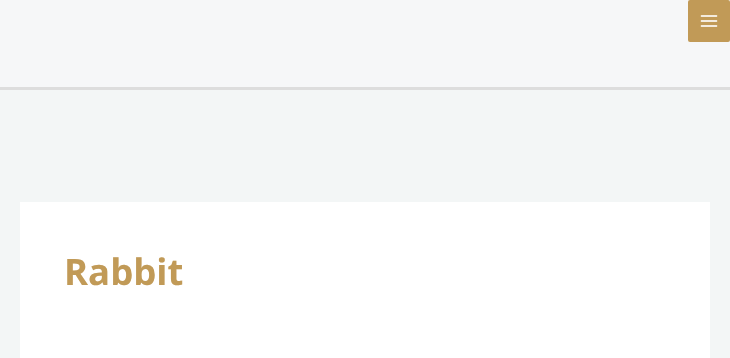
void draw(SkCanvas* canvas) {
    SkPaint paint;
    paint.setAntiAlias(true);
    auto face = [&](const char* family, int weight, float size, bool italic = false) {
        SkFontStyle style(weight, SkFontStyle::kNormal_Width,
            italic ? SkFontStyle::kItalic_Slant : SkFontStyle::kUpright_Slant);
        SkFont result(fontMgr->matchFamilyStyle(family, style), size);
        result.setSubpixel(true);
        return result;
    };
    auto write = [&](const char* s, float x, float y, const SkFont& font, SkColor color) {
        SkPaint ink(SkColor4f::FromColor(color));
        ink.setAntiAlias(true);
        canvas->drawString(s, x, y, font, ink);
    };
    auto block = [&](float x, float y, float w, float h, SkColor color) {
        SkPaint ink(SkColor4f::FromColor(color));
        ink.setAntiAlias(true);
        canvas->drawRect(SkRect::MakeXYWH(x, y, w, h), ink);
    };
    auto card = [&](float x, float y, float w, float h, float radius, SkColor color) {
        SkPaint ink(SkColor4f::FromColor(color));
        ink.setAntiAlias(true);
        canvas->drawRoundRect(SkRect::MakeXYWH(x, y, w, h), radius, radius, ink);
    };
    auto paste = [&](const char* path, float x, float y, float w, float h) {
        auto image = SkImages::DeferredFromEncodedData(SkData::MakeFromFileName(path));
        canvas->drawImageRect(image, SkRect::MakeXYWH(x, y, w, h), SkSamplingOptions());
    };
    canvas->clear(SkColorSetRGB(243, 246, 246));
    block(0, 0, 730, 87, SkColorSetRGB(246, 247, 248));
    block(0, 87, 730, 3, SkColorSetRGB(221, 221, 221));
    card(688, 0, 42, 42, 2, SkColorSetRGB(193, 154, 87));
    paste("pic1.png", 700, 15, 18, 12);
    block(20, 202, 690, 156, SK_ColorWHITE);
    auto kFont1 = face("Open Sans", 700, 36.5f);
    write("Rabbit", 64, 285, kFont1, SkColorSetRGB(193, 154, 87));
}
